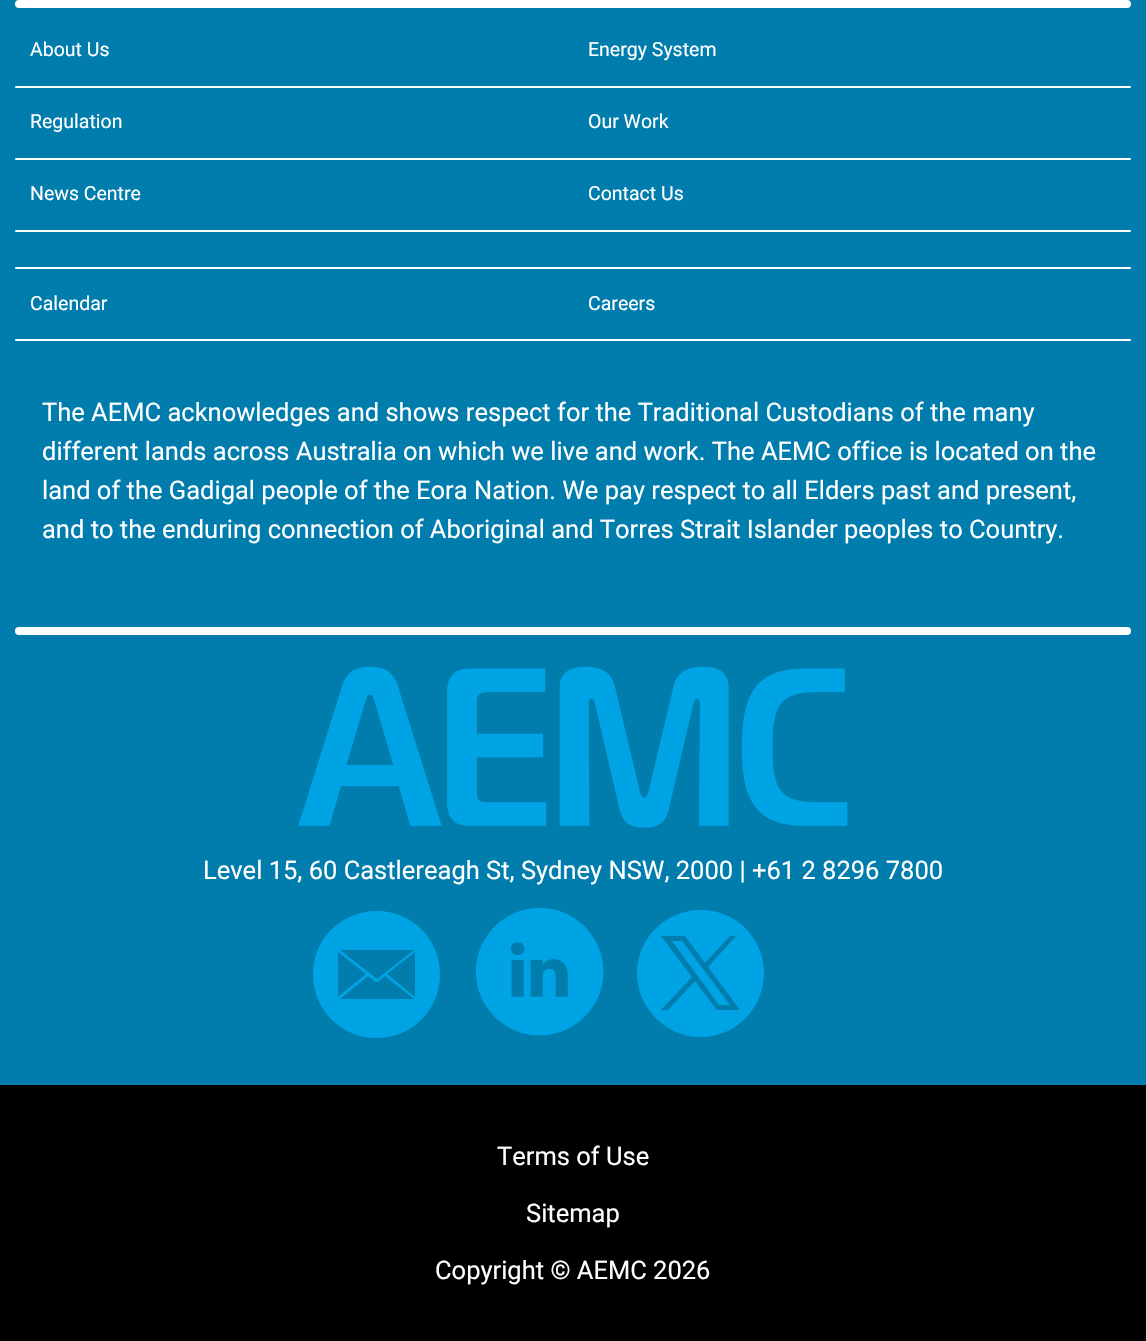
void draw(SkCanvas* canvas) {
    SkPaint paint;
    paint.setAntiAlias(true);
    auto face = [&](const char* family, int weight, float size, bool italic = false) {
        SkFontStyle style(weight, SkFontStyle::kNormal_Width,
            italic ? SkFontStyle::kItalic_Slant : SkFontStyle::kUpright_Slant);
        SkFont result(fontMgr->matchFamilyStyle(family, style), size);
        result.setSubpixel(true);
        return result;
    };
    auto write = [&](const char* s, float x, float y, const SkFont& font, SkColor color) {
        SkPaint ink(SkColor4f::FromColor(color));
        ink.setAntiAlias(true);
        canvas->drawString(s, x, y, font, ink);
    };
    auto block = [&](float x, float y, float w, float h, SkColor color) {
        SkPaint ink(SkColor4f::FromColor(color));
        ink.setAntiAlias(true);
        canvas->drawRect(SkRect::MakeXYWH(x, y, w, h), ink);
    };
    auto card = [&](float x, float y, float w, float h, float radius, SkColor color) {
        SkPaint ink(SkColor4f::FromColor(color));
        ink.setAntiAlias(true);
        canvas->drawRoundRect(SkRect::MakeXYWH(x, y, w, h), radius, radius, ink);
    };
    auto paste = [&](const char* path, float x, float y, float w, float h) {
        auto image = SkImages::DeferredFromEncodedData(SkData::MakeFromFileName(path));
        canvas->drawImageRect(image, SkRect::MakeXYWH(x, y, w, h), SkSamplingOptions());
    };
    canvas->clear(SkColorSetRGB(0, 124, 173));
    card(15, 0, 1116, 8, 4, SK_ColorWHITE);
    auto kFont1 = face("Roboto", 400, 19.5f);
    write("About Us", 30, 56, kFont1, SK_ColorWHITE);
    write("Energy System", 588, 56, kFont1, SK_ColorWHITE);
    card(15, 86, 1116, 2, 1, SK_ColorWHITE);
    write("Regulation", 30, 128, kFont1, SK_ColorWHITE);
    write("Our Work", 588, 128, kFont1, SK_ColorWHITE);
    card(15, 158, 1116, 2, 1, SK_ColorWHITE);
    write("News Centre", 30, 200, kFont1, SK_ColorWHITE);
    write("Contact Us", 588, 200, kFont1, SK_ColorWHITE);
    card(15, 230, 1116, 2, 1, SK_ColorWHITE);
    card(15, 267, 1116, 2, 1, SK_ColorWHITE);
    write("Calendar", 30, 310, kFont1, SK_ColorWHITE);
    write("Careers", 588, 310, kFont1, SK_ColorWHITE);
    card(15, 339, 1116, 2, 1, SK_ColorWHITE);
    auto kFont2 = face("Roboto", 400, 25.5f);
    write("The AEMC acknowledges and shows respect for the Traditional Custodians of the many", 42, 421, kFont2, SK_ColorWHITE);
    write("different lands across Australia on which we live and work. The AEMC office is located on the", 42, 460, kFont2, SK_ColorWHITE);
    write("land of the Gadigal people of the Eora Nation. We pay respect to all Elders past and present,", 42, 499, kFont2, SK_ColorWHITE);
    write("and to the enduring connection of Aboriginal and Torres Strait Islander peoples to Country.", 42, 538, kFont2, SK_ColorWHITE);
    card(15, 627, 1116, 8, 4, SK_ColorWHITE);
    paste("pic1.png", 298, 666, 550, 162);
    write("Level 15, 60 Castlereagh St, Sydney NSW, 2000 | +61 2 8296 7800", 203, 879, kFont2, SK_ColorWHITE);
    paint.setColor(SkColorSetRGB(0, 164, 228));
    canvas->drawPath(SkPathBuilder().moveTo(440, 974).cubicTo(440, 1010, 412, 1038, 377, 1038).cubicTo(341, 1038, 313, 1010, 313, 974).cubicTo(313, 939, 341, 911, 377, 911).cubicTo(412, 911, 440, 939, 440, 974).close().moveTo(387, 974).lineTo(415, 997).lineTo(415, 952).close().moveTo(385, 976).cubicTo(375, 984, 379, 984, 368, 976).lineTo(340, 999).lineTo(414, 999).close().moveTo(414, 950).lineTo(340, 950).lineTo(377, 979).close().moveTo(366, 974).lineTo(338, 952).lineTo(338, 997).close().detach(), paint);
    paste("pic2.png", 475, 908, 129, 128);
    canvas->drawPath(SkPathBuilder().moveTo(701, 910).cubicTo(736, 910, 764, 938, 764, 973).cubicTo(764, 1008, 736, 1037, 701, 1037).cubicTo(666, 1037, 637, 1008, 637, 973).cubicTo(637, 938, 666, 910, 701, 910).close().moveTo(708, 967).lineTo(736, 936).lineTo(730, 936).lineTo(705, 963).lineTo(685, 936).lineTo(661, 936).lineTo(692, 977).lineTo(661, 1010).lineTo(668, 1010).lineTo(695, 981).lineTo(717, 1010).lineTo(740, 1010).close().moveTo(672, 941).lineTo(682, 941).lineTo(730, 1005).lineTo(719, 1005).close().detach(), paint);
    block(0, 1085, 1146, 256, SK_ColorBLACK);
    write("Terms of Use", 497, 1165, kFont2, SK_ColorWHITE);
    write("Sitemap", 526, 1222, kFont2, SK_ColorWHITE);
    write("Copyright © AEMC 2026", 435, 1279, kFont2, SK_ColorWHITE);
}
